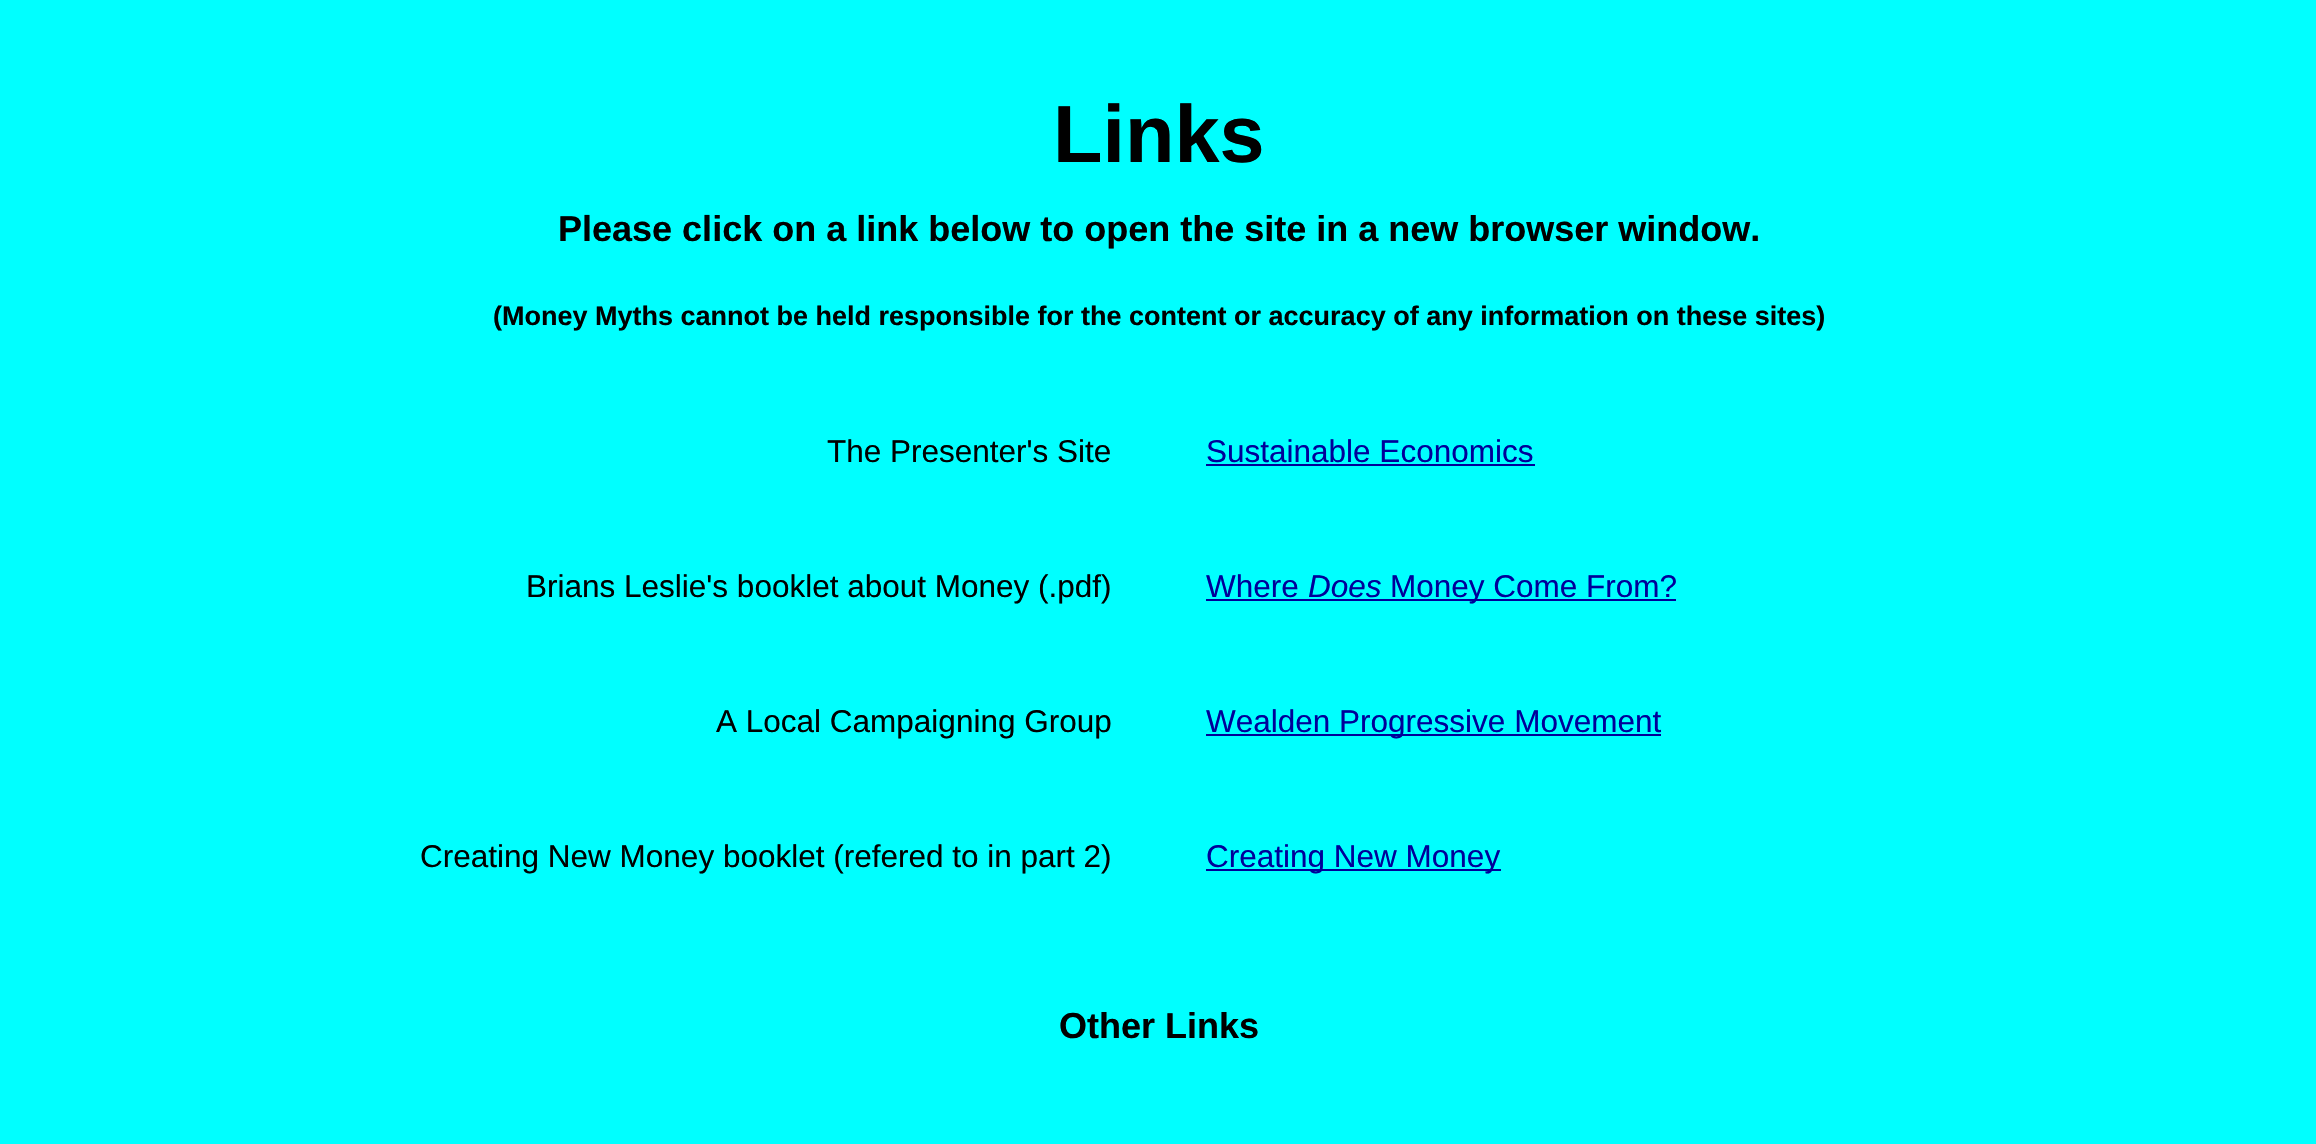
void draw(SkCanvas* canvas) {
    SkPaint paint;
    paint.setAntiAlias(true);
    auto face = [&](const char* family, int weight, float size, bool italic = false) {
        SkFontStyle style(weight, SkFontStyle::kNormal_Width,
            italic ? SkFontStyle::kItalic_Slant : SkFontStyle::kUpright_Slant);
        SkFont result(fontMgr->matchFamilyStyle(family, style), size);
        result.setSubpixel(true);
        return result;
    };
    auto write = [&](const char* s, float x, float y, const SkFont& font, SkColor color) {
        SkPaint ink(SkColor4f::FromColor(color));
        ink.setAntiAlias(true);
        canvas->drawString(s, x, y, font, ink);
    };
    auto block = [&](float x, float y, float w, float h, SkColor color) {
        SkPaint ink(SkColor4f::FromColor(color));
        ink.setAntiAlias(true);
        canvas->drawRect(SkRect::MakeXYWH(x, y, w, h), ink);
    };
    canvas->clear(SkColorSetRGB(0, 255, 255));
    auto kFont1 = face("Liberation Sans", 700, 81);
    write("Links", 1053, 162, kFont1, SK_ColorBLACK);
    auto kFont2 = face("Liberation Sans", 700, 36);
    write("Please click on a link below to open the site in a new browser window.", 558, 241, kFont2, SK_ColorBLACK);
    auto kFont3 = face("Liberation Sans", 700, 27);
    write("(Money Myths cannot be held responsible for the content or accuracy of any information on these sites)", 493, 325, kFont3, SK_ColorBLACK);
    auto kFont4 = face("Liberation Sans", 400, 31.5f);
    write("The Presenter's Site", 827, 462, kFont4, SK_ColorBLACK);
    write("Sustainable Economics", 1206, 462, kFont4, SkColorSetRGB(0, 0, 153));
    block(1206, 464, 329, 2, SkColorSetRGB(0, 0, 153));
    write("Brians Leslie's booklet about Money (.pdf)", 526, 597, kFont4, SK_ColorBLACK);
    write("Where", 1206, 597, kFont4, SkColorSetRGB(0, 0, 153));
    auto kFont5 = face("Liberation Sans", 400, 31.5f, true);
    write("Does", 1308, 597, kFont5, SkColorSetRGB(0, 0, 153));
    block(1206, 599, 470, 2, SkColorSetRGB(0, 0, 153));
    write("Money Come From?", 1390, 597, kFont4, SkColorSetRGB(0, 0, 153));
    write("A Local Campaigning Group", 716, 732, kFont4, SK_ColorBLACK);
    block(1206, 734, 455, 2, SkColorSetRGB(0, 0, 153));
    write("Wealden Progressive Movement", 1206, 732, kFont4, SkColorSetRGB(0, 0, 153));
    write("Creating New Money booklet (refered to in part 2)", 420, 867, kFont4, SK_ColorBLACK);
    block(1206, 869, 295, 2, SkColorSetRGB(0, 0, 153));
    write("Creating New Money", 1206, 867, kFont4, SkColorSetRGB(0, 0, 153));
    write("Other Links", 1059, 1038, kFont2, SK_ColorBLACK);
}
